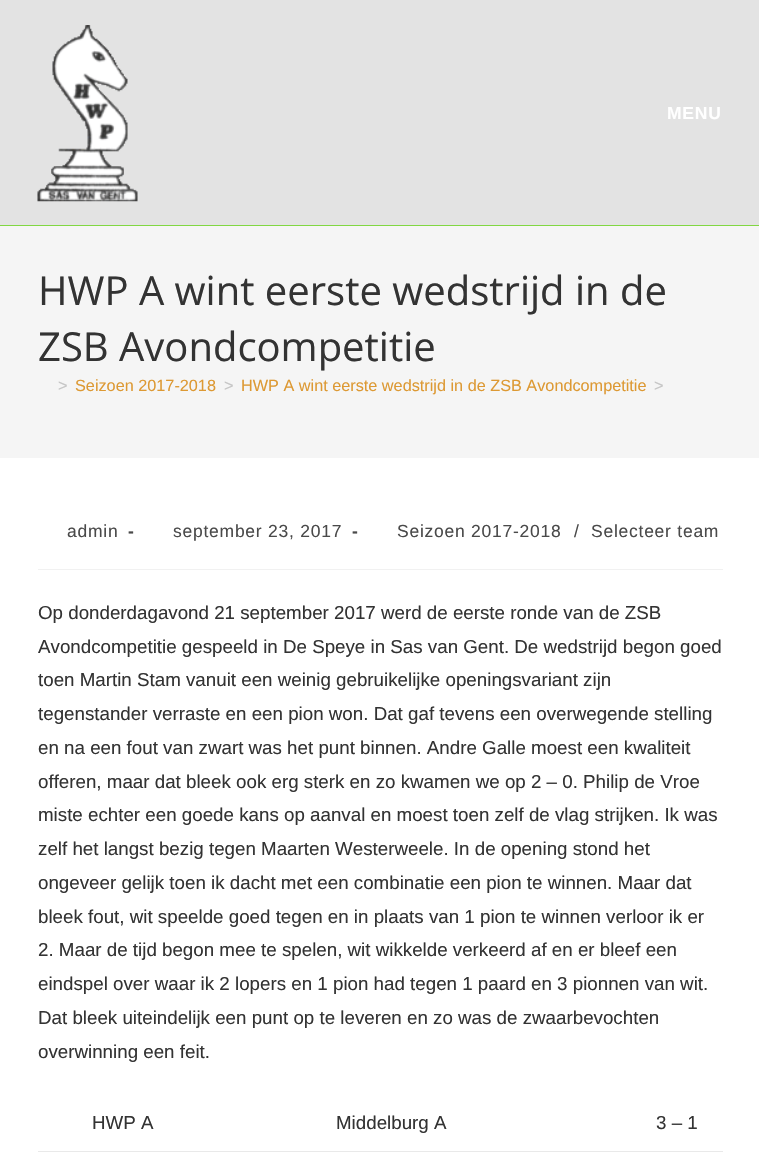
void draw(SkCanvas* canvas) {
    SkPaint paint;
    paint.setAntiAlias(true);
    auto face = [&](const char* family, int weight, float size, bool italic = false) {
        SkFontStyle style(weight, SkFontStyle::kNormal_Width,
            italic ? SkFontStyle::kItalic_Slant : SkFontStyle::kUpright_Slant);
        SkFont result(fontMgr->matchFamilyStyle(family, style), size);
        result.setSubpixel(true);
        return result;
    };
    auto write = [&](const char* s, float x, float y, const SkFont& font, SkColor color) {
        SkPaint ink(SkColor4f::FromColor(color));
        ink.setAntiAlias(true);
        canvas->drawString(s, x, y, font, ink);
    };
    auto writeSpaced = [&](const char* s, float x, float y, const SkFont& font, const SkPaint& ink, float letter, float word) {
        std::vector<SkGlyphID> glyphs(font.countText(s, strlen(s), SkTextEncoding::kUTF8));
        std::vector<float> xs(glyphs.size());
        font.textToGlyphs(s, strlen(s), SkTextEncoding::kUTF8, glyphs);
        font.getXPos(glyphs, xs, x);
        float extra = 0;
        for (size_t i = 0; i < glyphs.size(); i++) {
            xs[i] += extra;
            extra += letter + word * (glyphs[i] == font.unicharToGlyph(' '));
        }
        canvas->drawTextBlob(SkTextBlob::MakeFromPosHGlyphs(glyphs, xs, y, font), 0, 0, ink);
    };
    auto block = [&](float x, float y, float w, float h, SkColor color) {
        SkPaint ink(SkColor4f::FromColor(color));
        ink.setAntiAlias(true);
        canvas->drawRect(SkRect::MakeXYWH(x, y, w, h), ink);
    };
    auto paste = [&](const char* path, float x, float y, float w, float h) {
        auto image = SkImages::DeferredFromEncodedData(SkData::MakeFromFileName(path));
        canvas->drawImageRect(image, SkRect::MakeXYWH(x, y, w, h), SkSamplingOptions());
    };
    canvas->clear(SK_ColorWHITE);
    block(0, 225, 759, 1, SkColorSetRGB(129, 215, 66));
    block(0, 0, 759, 225, SkColorSetRGB(227, 227, 227));
    paste("pic1.png", 37, 25, 101, 177);
    auto kFont1 = face("Liberation Sans", 700, 17.5f);
    paint.setColor(SK_ColorWHITE);
    writeSpaced("MENU", 667, 119, kFont1, paint, 0.75f, 0);
    block(0, 226, 759, 232, SkColorSetRGB(245, 245, 245));
    auto kFont2 = face("Open Sans", 400, 40);
    write("HWP A wint eerste wedstrijd in de", 38, 305, kFont2, SkColorSetRGB(51, 51, 51));
    write("ZSB Avondcompetitie", 38, 361, kFont2, SkColorSetRGB(51, 51, 51));
    auto kFont3 = face("Liberation Sans", 400, 16.25f);
    write(">", 58, 391, kFont3, SkColorSetRGB(198, 198, 198));
    write("Seizoen 2017-2018", 75, 391, kFont3, SkColorSetRGB(221, 153, 51));
    write(">", 224, 391, kFont3, SkColorSetRGB(198, 198, 198));
    write("HWP A wint eerste wedstrijd in de ZSB Avondcompetitie", 241, 391, kFont3, SkColorSetRGB(221, 153, 51));
    write(">", 654, 391, kFont3, SkColorSetRGB(198, 198, 198));
    block(38, 569, 685, 1, SkColorSetRGB(241, 241, 241));
    auto kFont4 = face("Liberation Sans", 400, 17.5f);
    paint.setColor(SkColorSetRGB(74, 74, 74));
    writeSpaced("admin", 67, 537, kFont4, paint, 0.75f, 0);
    writeSpaced("-", 128, 537, kFont1, paint, 0.75f, 0);
    writeSpaced("september 23, 2017", 173, 537, kFont4, paint, 0.75f, 0);
    writeSpaced("-", 352, 537, kFont1, paint, 0.75f, 0);
    writeSpaced("Seizoen 2017-2018", 397, 537, kFont4, paint, 0.75f, 0);
    writeSpaced("/", 574, 537, kFont4, paint, 0.75f, 0);
    writeSpaced("Selecteer team", 591, 537, kFont4, paint, 0.75f, 0);
    auto kFont5 = face("Liberation Sans", 400, 18.75f);
    write("Op donderdagavond 21 september 2017 werd de eerste ronde van de ZSB", 38, 619, kFont5, SkColorSetRGB(51, 51, 51));
    write("Avondcompetitie gespeeld in De Speye in Sas van Gent. De wedstrijd begon goed", 38, 653, kFont5, SkColorSetRGB(51, 51, 51));
    write("toen Martin Stam vanuit een weinig gebruikelijke openingsvariant zijn", 38, 686, kFont5, SkColorSetRGB(51, 51, 51));
    write("tegenstander verraste en een pion won. Dat gaf tevens een overwegende stelling", 38, 720, kFont5, SkColorSetRGB(51, 51, 51));
    write("en na een fout van zwart was het punt binnen. Andre Galle moest een kwaliteit", 38, 754, kFont5, SkColorSetRGB(51, 51, 51));
    write("offeren, maar dat bleek ook erg sterk en zo kwamen we op 2 – 0. Philip de Vroe", 38, 788, kFont5, SkColorSetRGB(51, 51, 51));
    write("miste echter een goede kans op aanval en moest toen zelf de vlag strijken. Ik was", 38, 821, kFont5, SkColorSetRGB(51, 51, 51));
    write("zelf het langst bezig tegen Maarten Westerweele. In de opening stond het", 38, 855, kFont5, SkColorSetRGB(51, 51, 51));
    write("ongeveer gelijk toen ik dacht met een combinatie een pion te winnen. Maar dat", 38, 889, kFont5, SkColorSetRGB(51, 51, 51));
    write("bleek fout, wit speelde goed tegen en in plaats van 1 pion te winnen verloor ik er", 38, 923, kFont5, SkColorSetRGB(51, 51, 51));
    write("2. Maar de tijd begon mee te spelen, wit wikkelde verkeerd af en er bleef een", 38, 956, kFont5, SkColorSetRGB(51, 51, 51));
    write("eindspel over waar ik 2 lopers en 1 pion had tegen 1 paard en 3 pionnen van wit.", 38, 990, kFont5, SkColorSetRGB(51, 51, 51));
    write("Dat bleek uiteindelijk een punt op te leveren en zo was de zwaarbevochten", 38, 1024, kFont5, SkColorSetRGB(51, 51, 51));
    write("overwinning een feit.", 38, 1058, kFont5, SkColorSetRGB(51, 51, 51));
    write("HWP A", 92, 1129, kFont5, SkColorSetRGB(51, 51, 51));
    write("Middelburg A", 336, 1129, kFont5, SkColorSetRGB(51, 51, 51));
    block(38, 1151, 685, 1, SkColorSetRGB(233, 233, 233));
    write("3 – 1", 656, 1129, kFont5, SkColorSetRGB(51, 51, 51));
}
